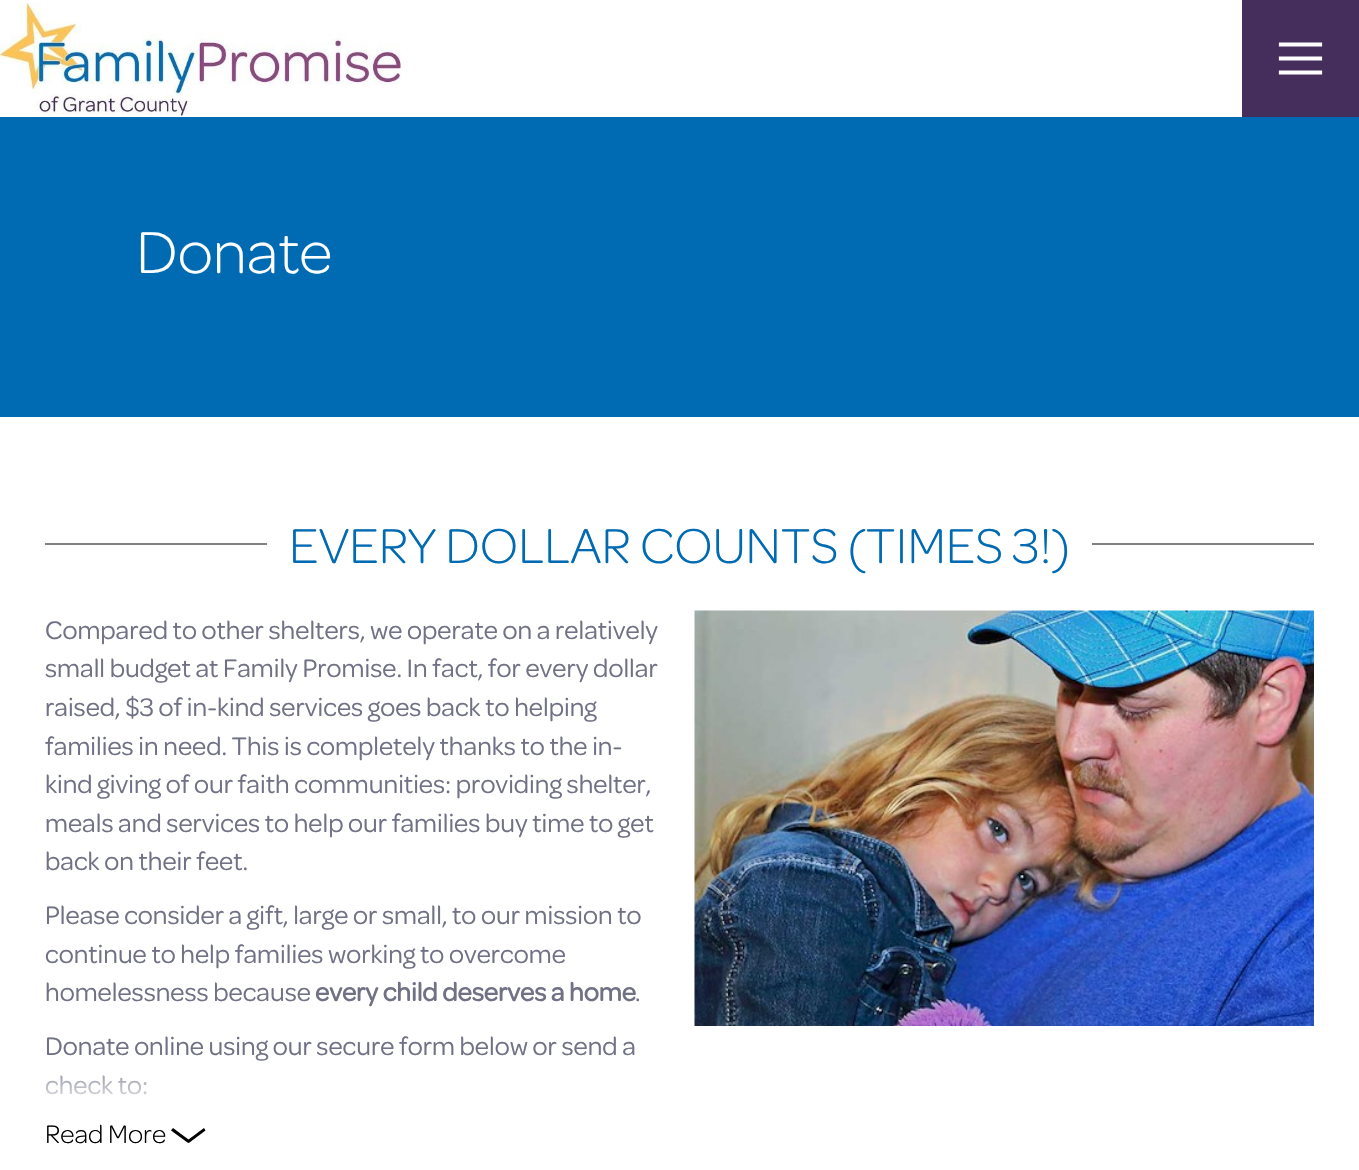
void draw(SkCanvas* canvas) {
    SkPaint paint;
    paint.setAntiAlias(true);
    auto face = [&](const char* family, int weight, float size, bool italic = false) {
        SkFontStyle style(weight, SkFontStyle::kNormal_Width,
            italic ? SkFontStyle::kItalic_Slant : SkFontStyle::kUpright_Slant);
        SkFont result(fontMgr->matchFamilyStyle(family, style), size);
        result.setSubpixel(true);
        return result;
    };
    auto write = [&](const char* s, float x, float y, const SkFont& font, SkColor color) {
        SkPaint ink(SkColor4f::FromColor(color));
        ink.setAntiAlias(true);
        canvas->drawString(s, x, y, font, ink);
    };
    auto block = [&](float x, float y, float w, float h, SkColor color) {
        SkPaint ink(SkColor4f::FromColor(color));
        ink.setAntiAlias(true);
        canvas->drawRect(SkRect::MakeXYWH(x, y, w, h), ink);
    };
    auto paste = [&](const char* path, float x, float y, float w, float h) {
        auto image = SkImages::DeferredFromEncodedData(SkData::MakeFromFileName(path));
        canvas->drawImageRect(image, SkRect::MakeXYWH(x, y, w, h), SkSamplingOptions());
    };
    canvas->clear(SK_ColorWHITE);
    paste("pic1.png", 0, 3, 401, 113);
    block(1242, 0, 117, 117, SkColorSetRGB(70, 46, 92));
    paint.setStyle(SkPaint::kStroke_Style);
    paint.setStrokeWidth(4.2f);
    paint.setStrokeCap(SkPaint::kSquare_Cap);
    paint.setColor(SK_ColorWHITE);
    canvas->drawPath(SkPathBuilder().moveTo(1281, 44.5f).lineTo(1320, 44.5f).moveTo(1281, 58.5f).lineTo(1320, 58.5f).moveTo(1281, 72.5f).lineTo(1320, 72.5f).detach(), paint);
    block(0, 117, 1359, 300, SkColorSetRGB(0, 106, 179));
    auto kFont1 = face("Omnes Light", 300, 63);
    write("Donate", 136, 273, kFont1, SK_ColorWHITE);
    block(45, 543, 222, 2, SkColorSetRGB(128, 128, 128));
    auto kFont2 = face("Omnes Light", 300, 52.25f);
    write("EVERY DOLLAR COUNTS (TIMES 3!)", 289, 563, kFont2, SkColorSetRGB(0, 106, 179));
    block(1092, 543, 222, 2, SkColorSetRGB(128, 128, 128));
    auto kFont3 = face("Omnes", 400, 27.1f);
    write("Compared to other shelters, we operate on a relatively", 45, 639, kFont3, SkColorSetRGB(112, 113, 133));
    write("small budget at Family Promise. In fact, for every dollar", 45, 677, kFont3, SkColorSetRGB(112, 113, 133));
    write("raised, $3 of in-kind services goes back to helping", 45, 716, kFont3, SkColorSetRGB(112, 113, 133));
    write("families in need. This is completely thanks to the in-", 45, 755, kFont3, SkColorSetRGB(112, 113, 133));
    write("kind giving of our faith communities: providing shelter,", 45, 793, kFont3, SkColorSetRGB(112, 113, 133));
    write("meals and services to help our families buy time to get", 45, 832, kFont3, SkColorSetRGB(112, 113, 133));
    write("back on their feet.", 45, 870, kFont3, SkColorSetRGB(112, 113, 133));
    write("Please consider a gift, large or small, to our mission to", 45, 924, kFont3, SkColorSetRGB(112, 113, 133));
    write("continue to help families working to overcome", 45, 963, kFont3, SkColorSetRGB(112, 113, 133));
    write("homelessness because", 45, 1001, kFont3, SkColorSetRGB(112, 113, 133));
    auto kFont4 = face("Omnes", 700, 27.1f);
    write("every child deserves a home", 315, 1001, kFont4, SkColorSetRGB(112, 113, 133));
    write(".", 635, 1001, kFont3, SkColorSetRGB(112, 113, 133));
    write("Donate online using our secure form below or send a", 45, 1055, kFont3, SkColorSetRGB(112, 113, 133));
    write("check to:", 45, 1094, kFont3, SkColorSetRGB(112, 113, 133));
    paint.setStyle(SkPaint::kFill_Style);
    {
        const SkColor colors[] = {SkColorSetARGB(0, 255, 255, 255), SK_ColorWHITE};
        const float stops[] = {0, 1};
        const SkPoint ends[] = {{355, 1055}, {355, 1115}};
        paint.setShader(SkGradientShader::MakeLinear(ends, colors, stops, 2, SkTileMode::kClamp));
        paint.setAlpha(255);
    }
    canvas->drawRect(SkRect::MakeXYWH(45, 1056, 223, 39), paint);
    auto kFont5 = face("Omnes Light", 300, 27.1f);
    write("Read More", 45, 1143, kFont5, SK_ColorBLACK);
    paint.setShader(nullptr);
    paint.setColor(SK_ColorBLACK);
    canvas->drawPath(SkPathBuilder().moveTo(171, 1130.5f).lineTo(173, 1128).lineTo(188.5f, 1139.5f).lineTo(204, 1128).lineTo(205.5f, 1130.5f).lineTo(189.5f, 1142.5f).cubicTo(188.5f, 1143, 188, 1143, 187.5f, 1142.5f).close().detach(), paint);
    paste("pic2.png", 694, 610, 620, 416);
}
